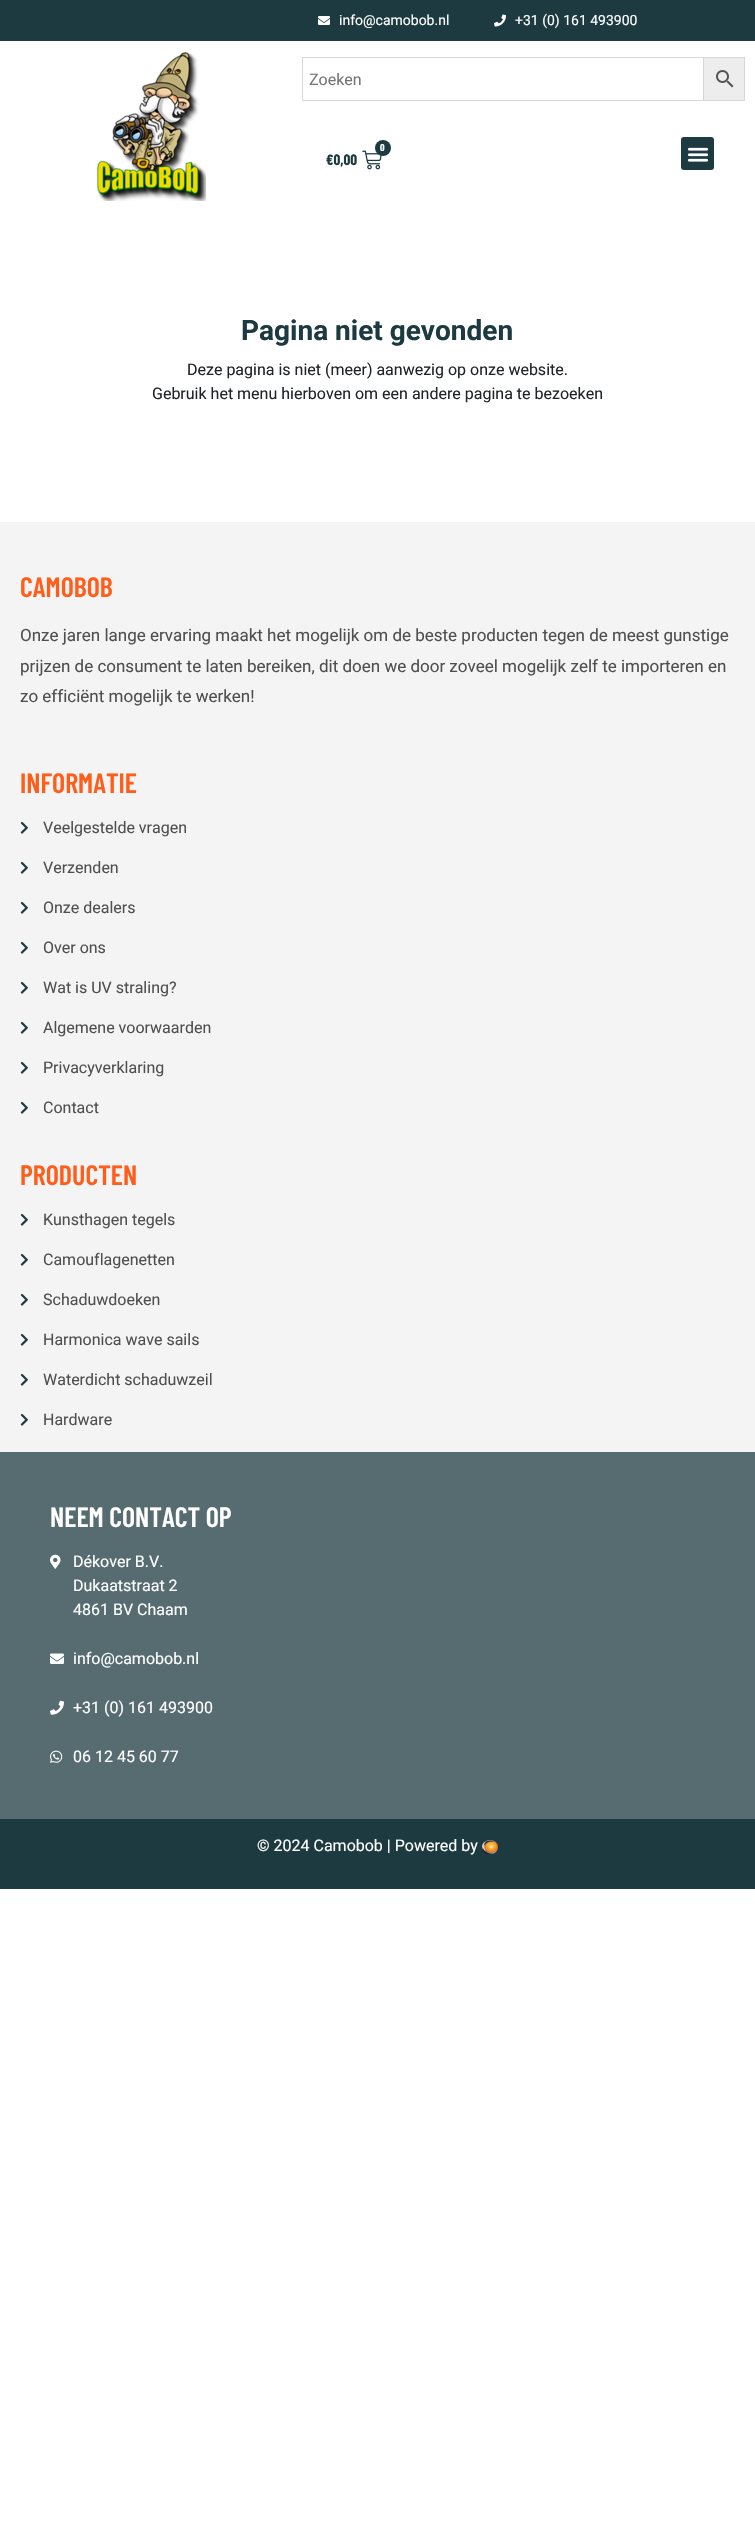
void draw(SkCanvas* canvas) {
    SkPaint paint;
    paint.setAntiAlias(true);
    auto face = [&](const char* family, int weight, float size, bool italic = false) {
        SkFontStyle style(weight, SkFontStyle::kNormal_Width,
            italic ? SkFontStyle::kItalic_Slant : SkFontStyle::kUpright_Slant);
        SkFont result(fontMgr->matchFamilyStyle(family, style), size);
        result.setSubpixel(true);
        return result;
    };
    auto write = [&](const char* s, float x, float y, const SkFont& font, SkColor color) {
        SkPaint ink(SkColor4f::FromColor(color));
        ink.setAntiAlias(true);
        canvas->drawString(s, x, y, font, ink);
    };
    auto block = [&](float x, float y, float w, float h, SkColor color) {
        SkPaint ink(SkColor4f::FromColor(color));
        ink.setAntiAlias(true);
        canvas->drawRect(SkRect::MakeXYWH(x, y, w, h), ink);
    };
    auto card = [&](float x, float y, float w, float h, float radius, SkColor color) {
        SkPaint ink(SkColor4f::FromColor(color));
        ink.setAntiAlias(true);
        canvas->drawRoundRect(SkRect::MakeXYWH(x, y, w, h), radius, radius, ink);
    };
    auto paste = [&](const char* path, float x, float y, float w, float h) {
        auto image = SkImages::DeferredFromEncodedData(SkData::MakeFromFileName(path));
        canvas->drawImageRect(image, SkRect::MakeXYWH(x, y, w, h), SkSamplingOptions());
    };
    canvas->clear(SK_ColorWHITE);
    block(0, 0, 755, 41, SkColorSetRGB(28, 58, 64));
    paste("pic1.png", 318, 16, 12, 9);
    auto kFont1 = face("Roboto", 400, 14);
    write("info@camobob.nl", 339, 25, kFont1, SK_ColorWHITE);
    paste("pic2.png", 494, 14, 12, 13);
    write("+31 (0) 161 493900", 515, 25, kFont1, SK_ColorWHITE);
    paste("pic3.png", 96, 52, 110, 149);
    paint.setColor(SkColorSetRGB(237, 237, 237));
    canvas->drawRect(SkRect::MakeXYWH(703.5f, 57.5f, 41, 43), paint);
    paint.setStyle(SkPaint::kStroke_Style);
    paint.setStrokeWidth(1);
    paint.setColor(SkColorSetRGB(216, 216, 216));
    canvas->drawRect(SkRect::MakeXYWH(703.5f, 57.5f, 41, 43), paint);
    canvas->drawRect(SkRect::MakeXYWH(302.5f, 57.5f, 401, 43), paint);
    auto kFont2 = face("Roboto", 400, 16);
    write("Zoeken", 309, 85, kFont2, SkColorSetRGB(117, 117, 117));
    paste("pic4.png", 716, 70, 18, 18);
    paste("pic5.png", 362, 150, 20, 20);
    paint.setStyle(SkPaint::kFill_Style);
    paint.setColor(SkColorSetRGB(28, 58, 64));
    canvas->drawCircle(383, 148, 8, paint);
    auto kFont3 = face("Barlow Condensed", 700, 10);
    write("0", 380, 151, kFont3, SK_ColorWHITE);
    auto kFont4 = face("Barlow Condensed", 700, 15);
    write("€0,00", 326, 165, kFont4, SkColorSetRGB(28, 58, 64));
    card(681, 137, 33, 33, 3, SkColorSetRGB(28, 58, 64));
    paste("pic6.png", 687, 147, 22, 15);
    auto kFont5 = face("Roboto", 700, 28);
    write("Pagina niet gevonden", 241, 340, kFont5, SkColorSetRGB(28, 58, 64));
    write("Deze pagina is niet (meer) aanwezig op onze website.", 187, 375, kFont2, SkColorSetRGB(33, 37, 41));
    write("Gebruik het menu hierboven om een andere pagina te bezoeken", 152, 399, kFont2, SkColorSetRGB(33, 37, 41));
    block(0, 522, 755, 930, SkColorSetRGB(244, 244, 244));
    auto kFont6 = face("Barlow Condensed", 600, 28);
    write("CAMOBOB", 20, 597, kFont6, SkColorSetRGB(255, 93, 25));
    auto kFont7 = face("Roboto", 400, 17);
    write("Onze jaren lange ervaring maakt het mogelijk om de beste producten tegen de meest gunstige", 20, 641, kFont7, SkColorSetRGB(79, 79, 79));
    write("prijzen de consument te laten bereiken, dit doen we door zoveel mogelijk zelf te importeren en", 20, 672, kFont7, SkColorSetRGB(79, 79, 79));
    write("zo efficiënt mogelijk te werken!", 20, 702, kFont7, SkColorSetRGB(79, 79, 79));
    write("INFORMATIE", 20, 793, kFont6, SkColorSetRGB(255, 93, 25));
    paste("pic7.png", 20, 821, 8, 13);
    write("Veelgestelde vragen", 43, 833, kFont2, SkColorSetRGB(79, 79, 79));
    paste("pic7.png", 20, 861, 8, 13);
    write("Verzenden", 43, 873, kFont2, SkColorSetRGB(79, 79, 79));
    paste("pic7.png", 20, 901, 8, 13);
    write("Onze dealers", 43, 913, kFont2, SkColorSetRGB(79, 79, 79));
    paste("pic7.png", 20, 941, 8, 13);
    write("Over ons", 43, 953, kFont2, SkColorSetRGB(79, 79, 79));
    paste("pic7.png", 20, 981, 8, 13);
    write("Wat is UV straling?", 43, 993, kFont2, SkColorSetRGB(79, 79, 79));
    paste("pic7.png", 20, 1021, 8, 13);
    write("Algemene voorwaarden", 43, 1033, kFont2, SkColorSetRGB(79, 79, 79));
    paste("pic7.png", 20, 1061, 8, 13);
    write("Privacyverklaring", 43, 1073, kFont2, SkColorSetRGB(79, 79, 79));
    paste("pic7.png", 20, 1101, 8, 13);
    write("Contact", 43, 1113, kFont2, SkColorSetRGB(79, 79, 79));
    write("PRODUCTEN", 20, 1185, kFont6, SkColorSetRGB(255, 93, 25));
    paste("pic7.png", 20, 1213, 8, 13);
    write("Kunsthagen tegels", 43, 1225, kFont2, SkColorSetRGB(79, 79, 79));
    paste("pic7.png", 20, 1253, 8, 13);
    write("Camouflagenetten", 43, 1265, kFont2, SkColorSetRGB(79, 79, 79));
    paste("pic7.png", 20, 1293, 8, 13);
    write("Schaduwdoeken", 43, 1305, kFont2, SkColorSetRGB(79, 79, 79));
    paste("pic7.png", 20, 1333, 8, 13);
    write("Harmonica wave sails", 43, 1345, kFont2, SkColorSetRGB(79, 79, 79));
    paste("pic7.png", 20, 1373, 8, 13);
    write("Waterdicht schaduwzeil", 43, 1385, kFont2, SkColorSetRGB(79, 79, 79));
    paste("pic7.png", 20, 1413, 8, 13);
    write("Hardware", 43, 1425, kFont2, SkColorSetRGB(79, 79, 79));
    block(0, 1452, 755, 367, SkColorSetRGB(86, 108, 113));
    write("NEEM CONTACT OP", 50, 1527, kFont6, SK_ColorWHITE);
    paste("pic8.png", 50, 1554, 11, 15);
    write("Dékover B.V.", 73, 1567, kFont2, SK_ColorWHITE);
    write("Dukaatstraat 2", 73, 1591, kFont2, SK_ColorWHITE);
    write("4861 BV Chaam", 73, 1615, kFont2, SK_ColorWHITE);
    paste("pic9.png", 50, 1653, 14, 11);
    write("info@camobob.nl", 73, 1664, kFont2, SK_ColorWHITE);
    paste("pic10.png", 50, 1700, 14, 15);
    write("+31 (0) 161 493900", 73, 1713, kFont2, SK_ColorWHITE);
    paste("pic11.png", 50, 1750, 13, 13);
    write("06 12 45 60 77", 73, 1762, kFont2, SK_ColorWHITE);
    block(0, 1819, 755, 70, SkColorSetRGB(28, 58, 64));
    write("© 2024 Camobob | Powered by", 257, 1851, kFont2, SK_ColorWHITE);
    paste("pic12.png", 482, 1840, 16, 14);
}
